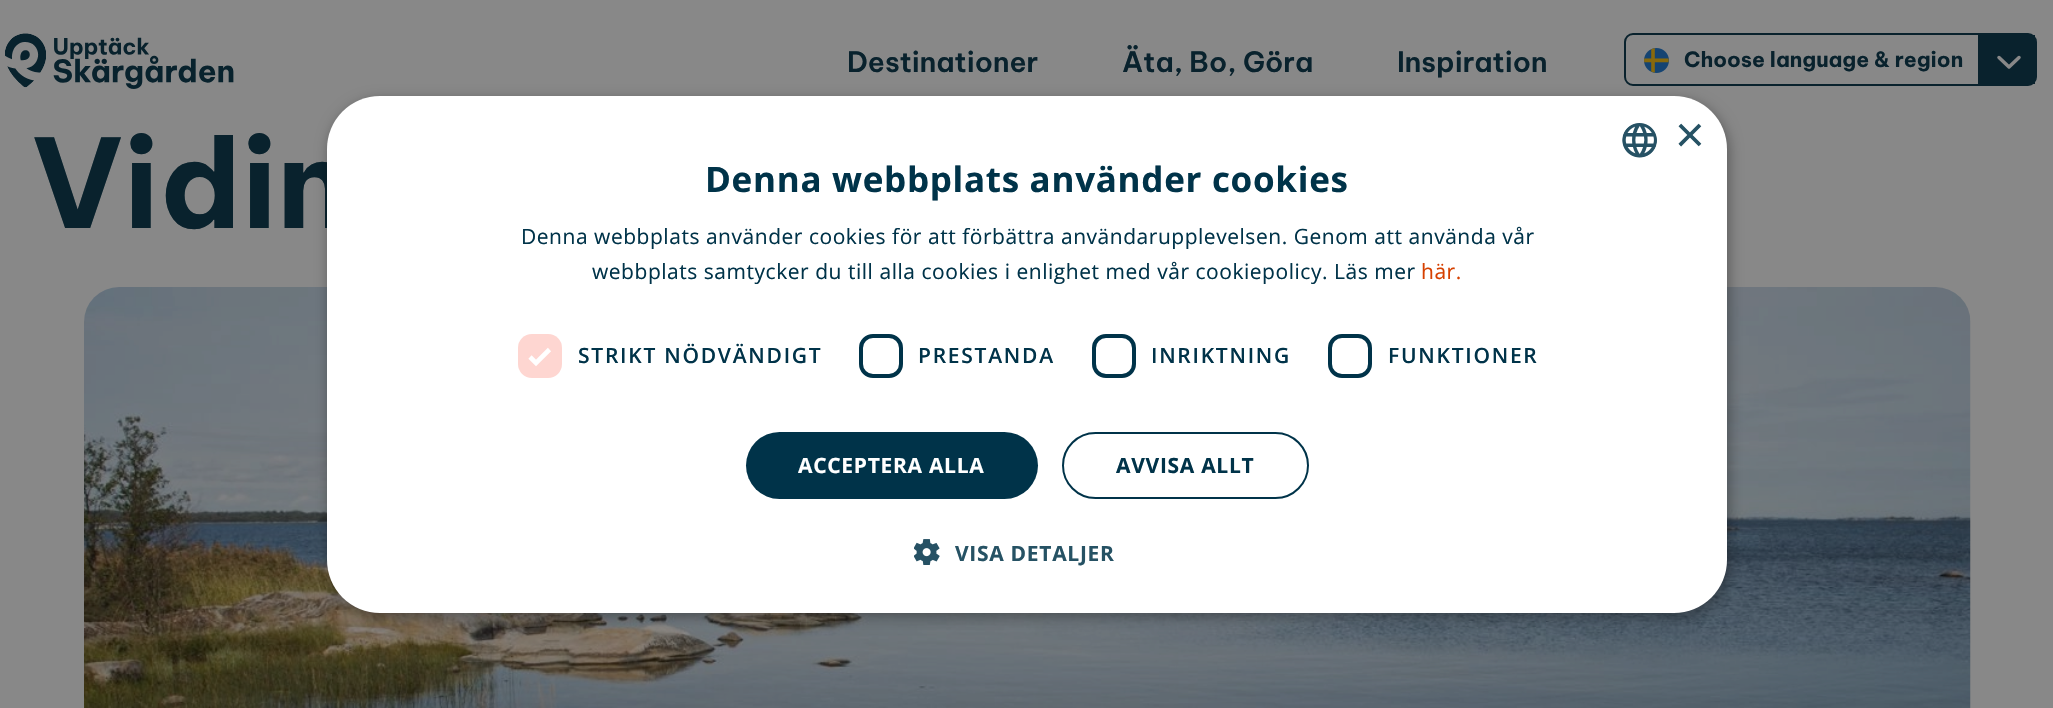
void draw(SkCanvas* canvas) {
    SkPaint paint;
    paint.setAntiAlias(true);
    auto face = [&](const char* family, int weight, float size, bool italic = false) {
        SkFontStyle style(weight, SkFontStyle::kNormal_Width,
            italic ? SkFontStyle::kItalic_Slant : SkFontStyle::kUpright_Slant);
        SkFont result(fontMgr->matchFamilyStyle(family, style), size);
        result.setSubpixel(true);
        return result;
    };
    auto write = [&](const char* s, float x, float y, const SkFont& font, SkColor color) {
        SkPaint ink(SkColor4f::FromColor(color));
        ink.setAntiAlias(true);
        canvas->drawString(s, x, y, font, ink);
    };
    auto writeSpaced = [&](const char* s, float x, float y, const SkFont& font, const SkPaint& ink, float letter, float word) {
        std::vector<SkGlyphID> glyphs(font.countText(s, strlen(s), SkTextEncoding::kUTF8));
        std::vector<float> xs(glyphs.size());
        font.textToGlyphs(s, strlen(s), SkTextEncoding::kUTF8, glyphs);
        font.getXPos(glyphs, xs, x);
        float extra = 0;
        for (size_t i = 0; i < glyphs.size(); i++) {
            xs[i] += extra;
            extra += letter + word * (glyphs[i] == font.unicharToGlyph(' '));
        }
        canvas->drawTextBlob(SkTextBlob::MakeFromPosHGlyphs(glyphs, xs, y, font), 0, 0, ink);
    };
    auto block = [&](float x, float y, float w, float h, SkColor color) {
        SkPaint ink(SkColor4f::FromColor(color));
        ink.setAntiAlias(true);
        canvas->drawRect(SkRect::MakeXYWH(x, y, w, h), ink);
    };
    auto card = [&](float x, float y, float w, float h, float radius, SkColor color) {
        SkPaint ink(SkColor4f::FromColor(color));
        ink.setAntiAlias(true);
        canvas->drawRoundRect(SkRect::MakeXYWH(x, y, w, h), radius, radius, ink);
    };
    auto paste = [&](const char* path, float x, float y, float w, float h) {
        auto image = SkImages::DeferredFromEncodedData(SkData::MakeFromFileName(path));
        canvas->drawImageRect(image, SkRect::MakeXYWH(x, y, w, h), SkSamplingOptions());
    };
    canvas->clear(SkColorSetRGB(136, 136, 136));
    paste("pic1.png", 5, 33, 229, 56);
    auto kFont1 = face("Be Vietnam Pro", 600, 28);
    write("Destinationer", 847, 72, kFont1, SkColorSetRGB(9, 34, 45));
    write("Äta, Bo, Göra", 1122, 72, kFont1, SkColorSetRGB(9, 34, 45));
    write("Inspiration", 1397, 72, kFont1, SkColorSetRGB(9, 34, 45));
    paint.setStyle(SkPaint::kStroke_Style);
    paint.setStrokeWidth(2);
    paint.setColor(SkColorSetRGB(9, 34, 45));
    canvas->drawRoundRect(SkRect::MakeXYWH(1625, 34, 411, 51), 8, 8, paint);
    paste("pic2.png", 1644, 48, 25, 25);
    auto kFont2 = face("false", 700, 21);
    write("Choose language & region", 1684, 67, kFont2, SkColorSetRGB(9, 34, 45));
    block(1978, 35, 57, 49, SkColorSetRGB(9, 34, 45));
    paint.setStrokeWidth(3.5f);
    paint.setStrokeCap(SkPaint::kRound_Cap);
    paint.setStrokeJoin(SkPaint::kRound_Join);
    paint.setColor(SkColorSetRGB(136, 136, 136));
    canvas->drawPath(SkPathBuilder().moveTo(2019, 57.5f).lineTo(2009, 67).lineTo(1999, 57.5f).detach(), paint);
    auto kFont3 = face("false", 700, 122.5f);
    write("Vidin", 32, 228, kFont3, SkColorSetRGB(9, 34, 45));
    paste("pic3.png", 84, 287, 1887, 421);
    paint.setStyle(SkPaint::kFill_Style);
    paint.setColor(SkColorSetARGB(89, 0, 0, 0));
    paint.setMaskFilter(SkMaskFilter::MakeBlur(kNormal_SkBlurStyle, 7));
    canvas->drawRoundRect(SkRect::MakeXYWH(329, 100, 1400, 516), 53, 53, paint);
    paint.setMaskFilter(nullptr);
    card(327, 96, 1400, 517, 53, SK_ColorWHITE);
    paste("pic4.png", 1622, 123, 35, 35);
    auto kFont4 = face("Liberation Sans", 400, 51);
    write("×", 1675, 152, kFont4, SkColorSetRGB(38, 82, 100));
    auto kFont5 = face("Open Sans", 700, 35);
    paint.setColor(SkColorSetRGB(0, 51, 73));
    writeSpaced("Denna webbplats använder cookies", 705, 192, kFont5, paint, 0.7f, 0);
    auto kFont6 = face("Open Sans", 400, 21);
    writeSpaced("Denna webbplats använder cookies för att förbättra användarupplevelsen. Genom att använda vår", 521, 244, kFont6, paint, 0.53f, 0);
    writeSpaced("webbplats samtycker du till alla cookies i enlighet med vår cookiepolicy. Läs mer", 592, 279, kFont6, paint, 0.53f, 0);
    paint.setColor(SkColorSetRGB(214, 64, 0));
    writeSpaced("här.", 1421, 279, kFont6, paint, 0.53f, 0);
    card(518, 334, 44, 44, 14, SkColorSetRGB(254, 214, 209));
    paint.setStyle(SkPaint::kStroke_Style);
    paint.setStrokeWidth(4.6f);
    paint.setStrokeCap(SkPaint::kButt_Cap);
    paint.setStrokeJoin(SkPaint::kMiter_Join);
    paint.setColor(SK_ColorWHITE);
    canvas->drawPath(SkPathBuilder().moveTo(530, 357).lineTo(536, 363).lineTo(549.5f, 349.5f).detach(), paint);
    auto kFont7 = face("Open Sans", 600, 21);
    paint.setStyle(SkPaint::kFill_Style);
    paint.setColor(SkColorSetRGB(0, 51, 73));
    writeSpaced("STRIKT NÖDVÄNDIGT", 578, 363, kFont7, paint, 1.75f, 0);
    paint.setStyle(SkPaint::kStroke_Style);
    paint.setStrokeWidth(4);
    canvas->drawRoundRect(SkRect::MakeXYWH(861, 336, 40, 40), 12, 12, paint);
    paint.setStyle(SkPaint::kFill_Style);
    writeSpaced("PRESTANDA", 918, 363, kFont7, paint, 1.75f, 0);
    paint.setStyle(SkPaint::kStroke_Style);
    canvas->drawRoundRect(SkRect::MakeXYWH(1094, 336, 40, 40), 12, 12, paint);
    paint.setStyle(SkPaint::kFill_Style);
    writeSpaced("INRIKTNING", 1151, 363, kFont7, paint, 1.75f, 0);
    paint.setStyle(SkPaint::kStroke_Style);
    canvas->drawRoundRect(SkRect::MakeXYWH(1330, 336, 40, 40), 12, 12, paint);
    paint.setStyle(SkPaint::kFill_Style);
    writeSpaced("FUNKTIONER", 1388, 363, kFont7, paint, 1.75f, 0);
    card(746, 432, 292, 67, 33.5f, SkColorSetRGB(0, 51, 73));
    auto kFont8 = face("Open Sans", 700, 21);
    paint.setColor(SK_ColorWHITE);
    writeSpaced("ACCEPTERA ALLA", 798, 473, kFont8, paint, 0.7f, 0);
    paint.setStyle(SkPaint::kStroke_Style);
    paint.setStrokeWidth(2);
    paint.setColor(SkColorSetRGB(0, 51, 73));
    canvas->drawRoundRect(SkRect::MakeXYWH(1063, 433, 245, 65), 32.5f, 32.5f, paint);
    paint.setStyle(SkPaint::kFill_Style);
    writeSpaced("AVVISA ALLT", 1116, 473, kFont8, paint, 0.7f, 0);
    paste("pic5.png", 914, 539, 26, 26);
    paint.setColor(SkColorSetRGB(38, 82, 100));
    writeSpaced("VISA DETALJER", 955, 561, kFont8, paint, 0.7f, 0);
}
